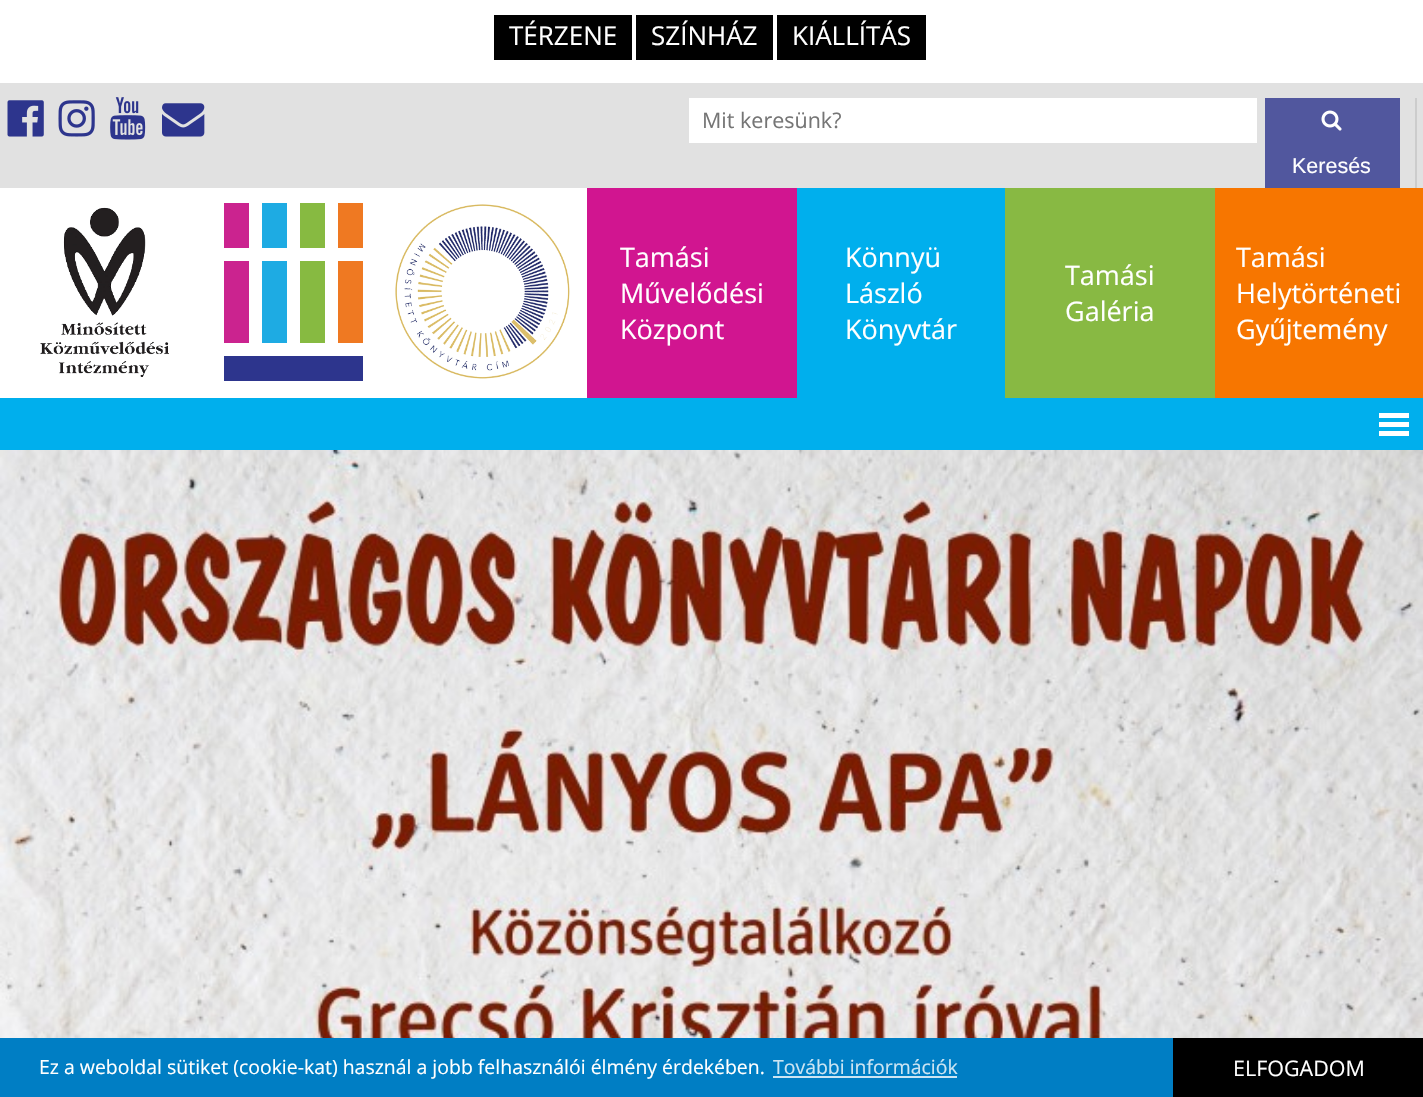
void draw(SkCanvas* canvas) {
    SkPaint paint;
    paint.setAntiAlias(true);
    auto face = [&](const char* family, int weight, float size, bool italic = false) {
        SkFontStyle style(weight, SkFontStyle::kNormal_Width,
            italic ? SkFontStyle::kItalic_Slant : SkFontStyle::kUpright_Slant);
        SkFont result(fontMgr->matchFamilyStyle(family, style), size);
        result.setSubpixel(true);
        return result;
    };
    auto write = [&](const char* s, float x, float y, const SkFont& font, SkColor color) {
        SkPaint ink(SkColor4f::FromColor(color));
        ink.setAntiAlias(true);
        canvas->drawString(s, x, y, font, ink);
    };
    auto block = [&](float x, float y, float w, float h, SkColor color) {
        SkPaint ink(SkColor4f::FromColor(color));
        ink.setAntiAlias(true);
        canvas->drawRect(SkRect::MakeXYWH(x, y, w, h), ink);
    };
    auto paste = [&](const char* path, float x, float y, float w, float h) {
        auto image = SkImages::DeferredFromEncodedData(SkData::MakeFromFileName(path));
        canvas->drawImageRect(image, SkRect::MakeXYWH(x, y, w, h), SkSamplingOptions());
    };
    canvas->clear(SK_ColorWHITE);
    block(0, 83, 1423, 105, SkColorSetRGB(225, 225, 225));
    block(494, 15, 138, 45, SK_ColorBLACK);
    auto kFont1 = face("Open Sans", 400, 26);
    write("TÉRZENE", 509, 45, kFont1, SK_ColorWHITE);
    block(636, 15, 137, 45, SK_ColorBLACK);
    write("SZÍNHÁZ", 651, 45, kFont1, SK_ColorWHITE);
    block(777, 15, 149, 45, SK_ColorBLACK);
    write("KIÁLLÍTÁS", 792, 45, kFont1, SK_ColorWHITE);
    paste("pic1.png", 7, 100, 37, 37);
    paste("pic2.png", 58, 100, 37, 37);
    paste("pic3.png", 110, 97, 36, 43);
    paste("pic4.png", 162, 103, 43, 34);
    block(1415, 98, 2, 90, SkColorSetRGB(204, 204, 204));
    block(689, 98, 568, 45, SK_ColorWHITE);
    auto kFont2 = face("Open Sans", 400, 21.5f);
    write("Mit keresünk?", 702, 128, kFont2, SkColorSetRGB(117, 117, 117));
    block(1265, 98, 135, 90, SkColorSetRGB(81, 87, 158));
    paste("pic5.png", 1321, 110, 21, 21);
    auto kFont3 = face("Liberation Sans", 400, 21.5f);
    write("Keresés", 1292, 173, kFont3, SK_ColorWHITE);
    paste("pic6.png", 40, 207, 129, 170);
    block(224, 203, 25, 45, SkColorSetRGB(203, 35, 143));
    block(224, 261, 25, 82, SkColorSetRGB(203, 35, 143));
    block(262, 203, 25, 45, SkColorSetRGB(30, 171, 227));
    block(262, 261, 25, 82, SkColorSetRGB(30, 171, 227));
    block(300, 203, 25, 45, SkColorSetRGB(135, 186, 65));
    block(300, 261, 25, 82, SkColorSetRGB(135, 186, 65));
    block(338, 203, 25, 45, SkColorSetRGB(239, 121, 34));
    block(338, 261, 25, 82, SkColorSetRGB(239, 121, 34));
    block(224, 356, 139, 25, SkColorSetRGB(45, 53, 141));
    paste("pic7.png", 395, 204, 175, 175);
    block(587, 188, 210, 210, SkColorSetRGB(209, 21, 144));
    auto kFont4 = face("Open Sans", 400, 27);
    write("Tamási", 620, 267, kFont4, SK_ColorWHITE);
    write("Művelődési", 620, 303, kFont4, SK_ColorWHITE);
    write("Központ", 620, 339, kFont4, SK_ColorWHITE);
    block(797, 188, 208, 210, SkColorSetRGB(0, 175, 237));
    write("Könnyü", 845, 267, kFont4, SK_ColorWHITE);
    write("László", 845, 303, kFont4, SK_ColorWHITE);
    write("Könyvtár", 845, 339, kFont4, SK_ColorWHITE);
    block(1005, 188, 210, 210, SkColorSetRGB(136, 185, 67));
    write("Tamási", 1065, 285, kFont4, SK_ColorWHITE);
    write("Galéria", 1065, 321, kFont4, SK_ColorWHITE);
    block(1215, 188, 208, 210, SkColorSetRGB(247, 118, 0));
    write("Tamási", 1236, 267, kFont4, SK_ColorWHITE);
    write("Helytörténeti", 1236, 303, kFont4, SK_ColorWHITE);
    write("Gyűjtemény", 1236, 339, kFont4, SK_ColorWHITE);
    block(0, 398, 1423, 52, SkColorSetRGB(0, 175, 237));
    block(1379, 413, 30, 5, SK_ColorWHITE);
    block(1379, 431, 30, 5, SK_ColorWHITE);
    block(1379, 422, 30, 5, SK_ColorWHITE);
    paste("pic8.png", 0, 450, 1423, 588);
    block(0, 1038, 1173, 59, SkColorSetRGB(0, 126, 196));
    auto kFont5 = face("Open Sans", 400, 19.45f);
    write("Ez a weboldal sütiket (cookie-kat) használ a jobb felhasználói élmény érdekében.", 39, 1074, kFont5, SK_ColorWHITE);
    write("További információk", 773, 1074, kFont5, SkColorSetRGB(204, 229, 243));
    block(773, 1076, 184, 2, SkColorSetRGB(204, 229, 243));
    block(1173, 1038, 250, 59, SK_ColorBLACK);
    write("ELFOGADOM", 1233, 1076, kFont2, SK_ColorWHITE);
}
